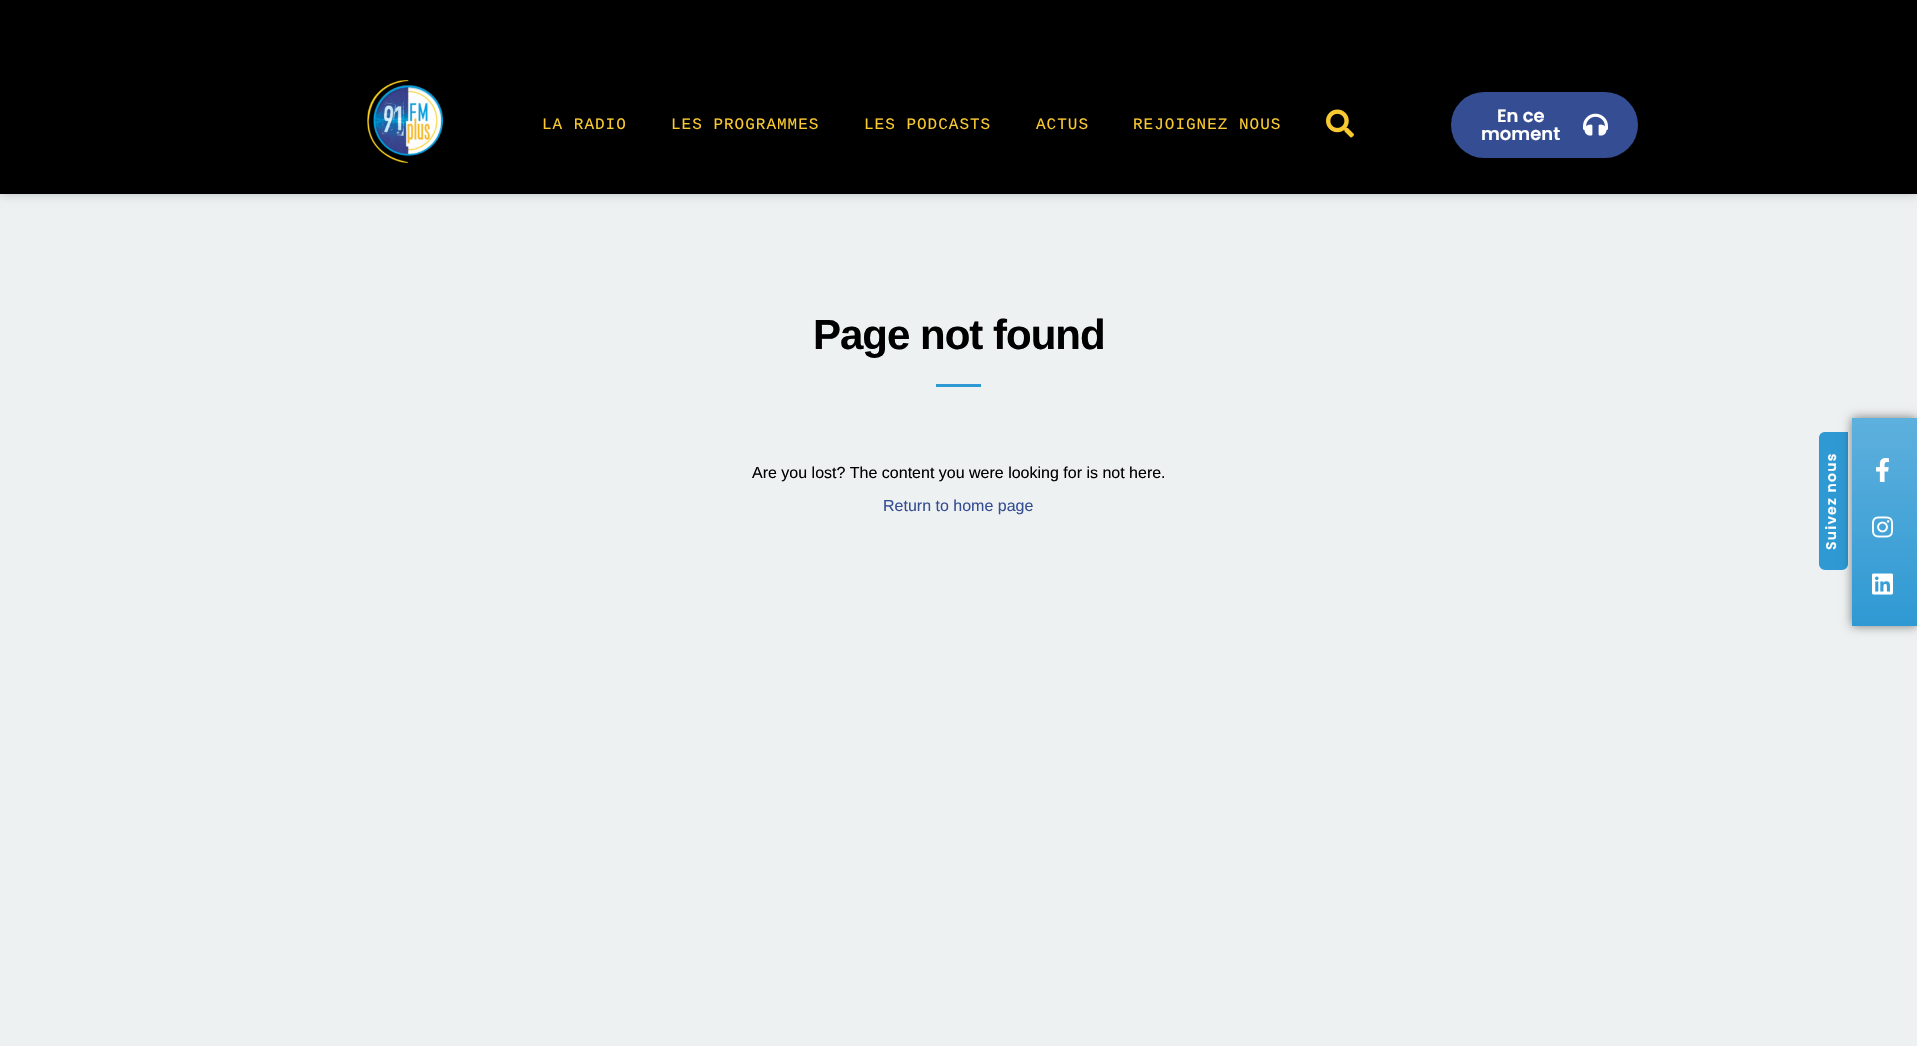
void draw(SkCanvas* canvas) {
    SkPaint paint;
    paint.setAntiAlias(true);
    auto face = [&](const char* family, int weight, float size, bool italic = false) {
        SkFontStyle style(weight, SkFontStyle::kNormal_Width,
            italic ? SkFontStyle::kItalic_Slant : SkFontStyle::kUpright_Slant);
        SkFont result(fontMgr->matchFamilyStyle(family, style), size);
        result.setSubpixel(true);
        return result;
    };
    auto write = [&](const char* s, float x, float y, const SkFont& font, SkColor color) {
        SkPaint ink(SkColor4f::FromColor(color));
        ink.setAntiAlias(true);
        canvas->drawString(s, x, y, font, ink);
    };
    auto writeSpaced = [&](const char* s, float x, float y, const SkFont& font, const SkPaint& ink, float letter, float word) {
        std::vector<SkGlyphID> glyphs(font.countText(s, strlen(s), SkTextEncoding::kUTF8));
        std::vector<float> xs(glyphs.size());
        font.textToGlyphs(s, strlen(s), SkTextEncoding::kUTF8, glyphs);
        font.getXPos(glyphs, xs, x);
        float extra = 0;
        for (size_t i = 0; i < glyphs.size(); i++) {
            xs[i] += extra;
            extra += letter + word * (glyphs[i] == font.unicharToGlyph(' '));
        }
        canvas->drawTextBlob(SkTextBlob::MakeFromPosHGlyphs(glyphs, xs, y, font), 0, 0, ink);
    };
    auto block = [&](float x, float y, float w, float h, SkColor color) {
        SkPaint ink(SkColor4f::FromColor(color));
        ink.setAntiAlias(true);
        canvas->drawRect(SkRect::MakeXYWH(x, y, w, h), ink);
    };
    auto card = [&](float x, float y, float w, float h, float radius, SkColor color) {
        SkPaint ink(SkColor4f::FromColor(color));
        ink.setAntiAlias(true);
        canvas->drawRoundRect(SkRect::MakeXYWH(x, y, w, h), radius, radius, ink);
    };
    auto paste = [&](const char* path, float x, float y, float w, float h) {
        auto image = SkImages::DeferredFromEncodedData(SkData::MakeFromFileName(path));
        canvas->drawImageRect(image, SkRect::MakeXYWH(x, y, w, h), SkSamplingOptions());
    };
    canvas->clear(SkColorSetRGB(238, 241, 241));
    paint.setColor(SkColorSetARGB(54, 0, 0, 0));
    paint.setMaskFilter(SkMaskFilter::MakeBlur(kNormal_SkBlurStyle, 5));
    canvas->drawRect(SkRect::MakeXYWH(0, 0, 1917, 194), paint);
    paint.setMaskFilter(nullptr);
    block(0, 0, 1917, 194, SK_ColorBLACK);
    paste("pic1.png", 367, 80, 76, 83);
    auto kFont1 = face("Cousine", 400, 16);
    paint.setColor(SkColorSetRGB(249, 201, 49));
    writeSpaced("LA RADIO", 542, 129, kFont1, paint, 1, 0);
    writeSpaced("LES PROGRAMMES", 671, 129, kFont1, paint, 1, 0);
    writeSpaced("LES PODCASTS", 864, 129, kFont1, paint, 1, 0);
    writeSpaced("ACTUS", 1036, 129, kFont1, paint, 1, 0);
    writeSpaced("REJOIGNEZ NOUS", 1133, 129, kFont1, paint, 1, 0);
    paste("pic2.png", 1326, 109, 28, 29);
    card(1451, 92, 187, 66, 33, SkColorSetRGB(53, 77, 147));
    auto kFont2 = face("Poppins", 600, 18);
    write("En ce", 1497, 122, kFont2, SK_ColorWHITE);
    write("moment", 1481, 140, kFont2, SK_ColorWHITE);
    paste("pic3.png", 1583, 113, 25, 23);
    paint.setColor(SkColorSetRGB(47, 153, 211));
    canvas->drawPath(SkPathBuilder().moveTo(1819, 564).lineTo(1819, 438).cubicTo(1819, 434, 1822, 432, 1825, 432).lineTo(1848, 432).lineTo(1848, 564).cubicTo(1848, 567, 1845, 570, 1842, 570).lineTo(1825, 570).cubicTo(1822, 570, 1819, 567, 1819, 564).close().detach(), paint);
    auto kFont3 = face("Poppins", 600, 14);
    paint.setColor(SK_ColorWHITE);
    canvas->save();
    canvas->rotate(-90, 1836, 550);
    writeSpaced("Suivez nous", 1836, 550, kFont3, paint, 1.25f, 0);
    canvas->restore();
    paint.setColor(SkColorSetARGB(128, 0, 0, 0));
    paint.setMaskFilter(SkMaskFilter::MakeBlur(kNormal_SkBlurStyle, 5));
    canvas->drawRect(SkRect::MakeXYWH(1852, 418, 65, 208), paint);
    paint.setMaskFilter(nullptr);
    {
        const SkColor colors[] = {SkColorSetRGB(94, 176, 221), SkColorSetRGB(47, 153, 211)};
        const float stops[] = {0, 1};
        const SkPoint ends[] = {{1885, 418}, {1885, 626}};
        paint.setShader(SkGradientShader::MakeLinear(ends, colors, stops, 2, SkTileMode::kClamp));
        paint.setAlpha(255);
    }
    canvas->drawRect(SkRect::MakeXYWH(1852, 418, 65, 208), paint);
    paste("pic4.png", 1876, 458, 13, 24);
    paste("pic5.png", 1872, 516, 22, 22);
    paste("pic6.png", 1872, 573, 21, 22);
    auto kFont4 = face("Liberation Sans", 700, 42);
    paint.setShader(nullptr);
    paint.setColor(SK_ColorBLACK);
    writeSpaced("Page not found", 813, 349, kFont4, paint, -1, 0);
    block(936, 384, 45, 3, SkColorSetRGB(47, 153, 211));
    auto kFont5 = face("Liberation Sans", 400, 16);
    write("Are you lost? The content you were looking for is not here.", 752, 478, kFont5, SK_ColorBLACK);
    write("Return to home page", 883, 511, kFont5, SkColorSetRGB(53, 77, 147));
}
